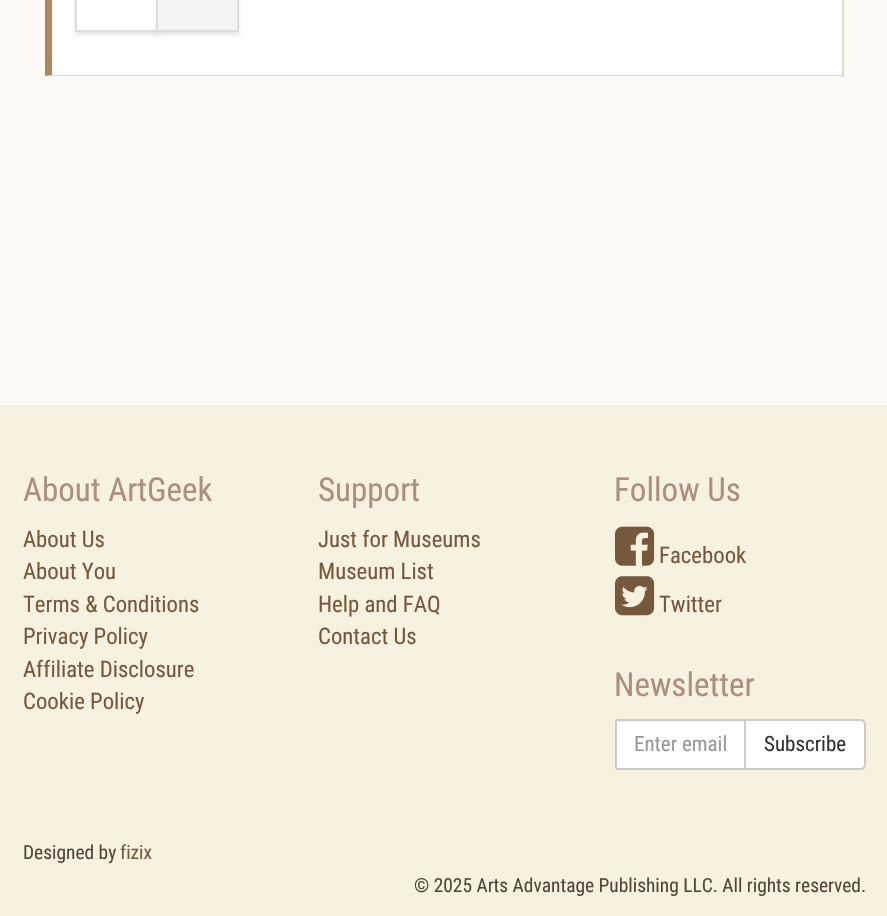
void draw(SkCanvas* canvas) {
    SkPaint paint;
    paint.setAntiAlias(true);
    auto face = [&](const char* family, int weight, float size, bool italic = false) {
        SkFontStyle style(weight, SkFontStyle::kNormal_Width,
            italic ? SkFontStyle::kItalic_Slant : SkFontStyle::kUpright_Slant);
        SkFont result(fontMgr->matchFamilyStyle(family, style), size);
        result.setSubpixel(true);
        return result;
    };
    auto write = [&](const char* s, float x, float y, const SkFont& font, SkColor color) {
        SkPaint ink(SkColor4f::FromColor(color));
        ink.setAntiAlias(true);
        canvas->drawString(s, x, y, font, ink);
    };
    auto block = [&](float x, float y, float w, float h, SkColor color) {
        SkPaint ink(SkColor4f::FromColor(color));
        ink.setAntiAlias(true);
        canvas->drawRect(SkRect::MakeXYWH(x, y, w, h), ink);
    };
    auto paste = [&](const char* path, float x, float y, float w, float h) {
        auto image = SkImages::DeferredFromEncodedData(SkData::MakeFromFileName(path));
        canvas->drawImageRect(image, SkRect::MakeXYWH(x, y, w, h), SkSamplingOptions());
    };
    canvas->clear(SkColorSetRGB(253, 250, 246));
    block(53, 0, 789, 75, SK_ColorWHITE);
    block(842, 0, 2, 77, SkColorSetRGB(226, 220, 193));
    paint.setColor(SkColorSetRGB(226, 220, 193));
    canvas->drawPath(SkPathBuilder().moveTo(843, 76).lineTo(45, 76).lineTo(52, 75).lineTo(842, 75).close().detach(), paint);
    paint.setColor(SkColorSetRGB(174, 135, 97));
    canvas->drawPath(SkPathBuilder().moveTo(45, 76).lineTo(45, -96).lineTo(52, -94).lineTo(52, 75).close().detach(), paint);
    paint.setColor(SkColorSetARGB(26, 0, 0, 0));
    paint.setMaskFilter(SkMaskFilter::MakeBlur(kNormal_SkBlurStyle, 2));
    canvas->drawRect(SkRect::MakeXYWH(75, -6, 83, 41), paint);
    paint.setMaskFilter(nullptr);
    paint.setColor(SK_ColorWHITE);
    canvas->drawRect(SkRect::MakeXYWH(76, -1, 81, 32), paint);
    paint.setStyle(SkPaint::kStroke_Style);
    paint.setStrokeWidth(2);
    paint.setColor(SkColorSetRGB(221, 221, 221));
    canvas->drawRect(SkRect::MakeXYWH(76, -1, 81, 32), paint);
    paint.setStyle(SkPaint::kFill_Style);
    paint.setColor(SkColorSetARGB(26, 0, 0, 0));
    paint.setMaskFilter(SkMaskFilter::MakeBlur(kNormal_SkBlurStyle, 2));
    canvas->drawRect(SkRect::MakeXYWH(156, -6, 83, 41), paint);
    paint.setMaskFilter(nullptr);
    paint.setColor(SkColorSetRGB(243, 243, 243));
    canvas->drawRect(SkRect::MakeXYWH(157, -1, 81, 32), paint);
    paint.setStyle(SkPaint::kStroke_Style);
    paint.setColor(SkColorSetRGB(221, 221, 221));
    canvas->drawRect(SkRect::MakeXYWH(157, -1, 81, 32), paint);
    block(0, 405, 887, 511, SkColorSetRGB(247, 241, 224));
    auto kFont1 = face("Roboto Condensed", 400, 33);
    write("About ArtGeek", 23, 501, kFont1, SkColorSetRGB(171, 143, 127));
    auto kFont2 = face("Roboto Condensed", 400, 22.75f);
    write("About Us", 23, 547, kFont2, SkColorSetRGB(118, 89, 61));
    write("About You", 23, 579, kFont2, SkColorSetRGB(118, 89, 61));
    write("Terms & Conditions", 23, 612, kFont2, SkColorSetRGB(118, 89, 61));
    write("Privacy Policy", 23, 644, kFont2, SkColorSetRGB(118, 89, 61));
    write("Affiliate Disclosure", 23, 677, kFont2, SkColorSetRGB(118, 89, 61));
    write("Cookie Policy", 23, 709, kFont2, SkColorSetRGB(118, 89, 61));
    write("Support", 318, 501, kFont1, SkColorSetRGB(171, 143, 127));
    write("Just for Museums", 318, 547, kFont2, SkColorSetRGB(118, 89, 61));
    write("Museum List", 318, 579, kFont2, SkColorSetRGB(118, 89, 61));
    write("Help and FAQ", 318, 612, kFont2, SkColorSetRGB(118, 89, 61));
    write("Contact Us", 318, 644, kFont2, SkColorSetRGB(118, 89, 61));
    write("Follow Us", 614, 501, kFont1, SkColorSetRGB(171, 143, 127));
    paste("pic1.png", 615, 526, 40, 40);
    write("Facebook", 659, 563, kFont2, SkColorSetRGB(118, 89, 61));
    paste("pic2.png", 615, 576, 40, 40);
    write("Twitter", 659, 612, kFont2, SkColorSetRGB(118, 89, 61));
    write("Newsletter", 614, 696, kFont1, SkColorSetRGB(171, 143, 127));
    paint.setStyle(SkPaint::kFill_Style);
    paint.setColor(SK_ColorWHITE);
    canvas->drawPath(SkPathBuilder().moveTo(618, 719).lineTo(746, 719).lineTo(746, 770).lineTo(618, 770).cubicTo(616.5f, 770, 615, 768.5f, 615, 767).lineTo(615, 722).cubicTo(615, 720.5f, 616.5f, 719, 618, 719).close().detach(), paint);
    paint.setColor(SkColorSetRGB(236, 236, 236));
    canvas->drawPath(SkPathBuilder().moveTo(618, 722).lineTo(744, 722).lineTo(744, 720).lineTo(618, 720).cubicTo(617, 720, 617, 721, 617, 722).close().detach(), paint);
    paint.setStyle(SkPaint::kStroke_Style);
    paint.setColor(SkColorSetRGB(204, 204, 204));
    canvas->drawPath(SkPathBuilder().moveTo(618, 720).lineTo(745, 720).lineTo(745, 769).lineTo(618, 769).cubicTo(617, 769, 616, 768, 616, 767).lineTo(616, 722).cubicTo(616, 721, 617, 720, 618, 720).close().detach(), paint);
    auto kFont3 = face("Roboto Condensed", 400, 21);
    write("Enter email", 634, 751, kFont3, SkColorSetRGB(153, 153, 153));
    paint.setStyle(SkPaint::kFill_Style);
    paint.setColor(SK_ColorWHITE);
    canvas->drawPath(SkPathBuilder().moveTo(745, 720).lineTo(860, 720).cubicTo(863, 720, 865, 722, 865, 725).lineTo(865, 764).cubicTo(865, 767, 863, 769, 860, 769).lineTo(745, 769).close().detach(), paint);
    paint.setStyle(SkPaint::kStroke_Style);
    paint.setColor(SkColorSetRGB(204, 204, 204));
    canvas->drawPath(SkPathBuilder().moveTo(745, 720).lineTo(860, 720).cubicTo(863, 720, 865, 722, 865, 725).lineTo(865, 764).cubicTo(865, 767, 863, 769, 860, 769).lineTo(745, 769).close().detach(), paint);
    write("Subscribe", 764, 751, kFont3, SkColorSetRGB(51, 51, 51));
    auto kFont4 = face("Roboto Condensed", 400, 19.4f);
    write("Designed by", 23, 859, kFont4, SkColorSetRGB(84, 68, 59));
    write("fizix", 120, 859, kFont4, SkColorSetRGB(118, 89, 61));
    write("© 2025 Arts Advantage Publishing LLC. All rights reserved.", 414, 892, kFont4, SkColorSetRGB(84, 68, 59));
}
